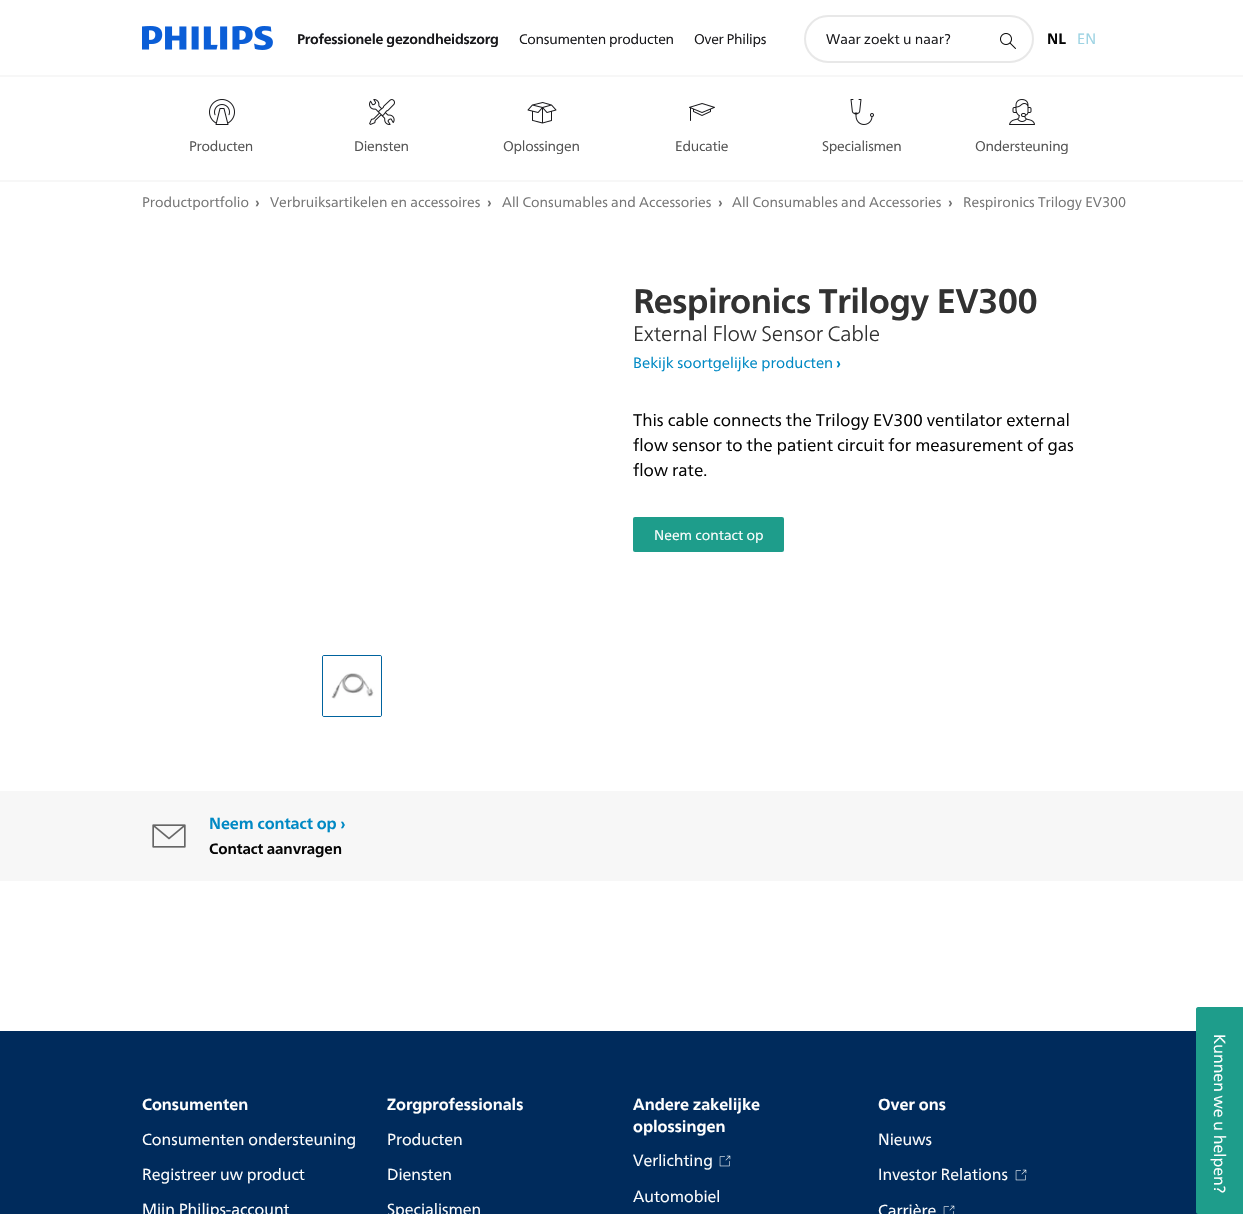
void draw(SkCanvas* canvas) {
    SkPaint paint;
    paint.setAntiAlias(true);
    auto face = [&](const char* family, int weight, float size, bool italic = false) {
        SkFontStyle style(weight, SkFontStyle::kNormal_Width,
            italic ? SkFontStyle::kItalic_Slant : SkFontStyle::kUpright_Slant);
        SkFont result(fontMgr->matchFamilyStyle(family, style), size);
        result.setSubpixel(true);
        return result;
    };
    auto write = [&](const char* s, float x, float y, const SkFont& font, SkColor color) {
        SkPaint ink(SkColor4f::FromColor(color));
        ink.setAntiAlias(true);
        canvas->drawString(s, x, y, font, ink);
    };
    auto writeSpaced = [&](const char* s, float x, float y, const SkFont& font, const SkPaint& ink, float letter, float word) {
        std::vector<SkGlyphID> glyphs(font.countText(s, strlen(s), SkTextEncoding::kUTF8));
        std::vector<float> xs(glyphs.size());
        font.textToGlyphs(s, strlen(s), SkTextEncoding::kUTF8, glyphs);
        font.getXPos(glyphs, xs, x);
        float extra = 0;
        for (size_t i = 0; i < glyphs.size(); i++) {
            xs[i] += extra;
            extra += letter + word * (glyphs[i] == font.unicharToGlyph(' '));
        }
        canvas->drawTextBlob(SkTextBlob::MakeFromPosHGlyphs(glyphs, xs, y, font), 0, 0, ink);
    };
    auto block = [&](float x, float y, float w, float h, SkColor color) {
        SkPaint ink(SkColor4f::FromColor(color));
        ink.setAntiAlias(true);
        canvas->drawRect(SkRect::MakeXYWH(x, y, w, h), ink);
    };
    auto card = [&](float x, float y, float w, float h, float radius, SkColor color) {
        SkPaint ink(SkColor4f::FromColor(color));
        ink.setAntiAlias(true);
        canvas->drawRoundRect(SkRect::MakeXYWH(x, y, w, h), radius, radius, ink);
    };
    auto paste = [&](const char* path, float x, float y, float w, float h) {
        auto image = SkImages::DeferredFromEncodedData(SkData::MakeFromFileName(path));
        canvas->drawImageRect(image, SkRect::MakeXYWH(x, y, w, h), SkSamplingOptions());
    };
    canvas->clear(SK_ColorWHITE);
    paste("pic1.png", 142, 26, 131, 24);
    auto kFont1 = face("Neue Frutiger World", 700, 14);
    paint.setColor(SkColorSetRGB(24, 24, 27));
    writeSpaced("Professionele gezondheidszorg", 297, 44, kFont1, paint, -0.25f, 0);
    block(0, 180, 1243, 2, SkColorSetRGB(247, 247, 247));
    paste("pic2.png", 209, 99, 26, 26);
    auto kFont2 = face("Neue Frutiger World", 400, 14);
    paint.setColor(SkColorSetRGB(84, 84, 84));
    writeSpaced("Producten", 189, 151, kFont2, paint, -0.25f, 0);
    paste("pic3.png", 369, 99, 26, 26);
    writeSpaced("Diensten", 354, 151, kFont2, paint, -0.25f, 0);
    paste("pic4.png", 527, 102, 30, 22);
    writeSpaced("Oplossingen", 503, 151, kFont2, paint, -0.25f, 0);
    paste("pic5.png", 689, 103, 26, 18);
    writeSpaced("Educatie", 675, 151, kFont2, paint, -0.25f, 0);
    paste("pic6.png", 850, 99, 24, 26);
    writeSpaced("Specialismen", 822, 151, kFont2, paint, -0.25f, 0);
    paste("pic7.png", 1009, 99, 26, 26);
    writeSpaced("Ondersteuning", 975, 151, kFont2, paint, -0.25f, 0);
    paint.setColor(SkColorSetRGB(24, 24, 27));
    writeSpaced("Consumenten producten", 519, 44, kFont2, paint, -0.25f, 0);
    writeSpaced("Over Philips", 694, 44, kFont2, paint, -0.25f, 0);
    block(0, 75, 1243, 2, SkColorSetRGB(247, 247, 247));
    paint.setStyle(SkPaint::kStroke_Style);
    paint.setStrokeWidth(2);
    paint.setColor(SkColorSetRGB(232, 232, 232));
    canvas->drawRoundRect(SkRect::MakeXYWH(805, 16, 228, 46), 23, 23, paint);
    write("Waar zoekt u naar?", 826, 44, kFont2, SkColorSetRGB(24, 24, 27));
    paste("pic8.png", 1000, 33, 16, 16);
    auto kFont3 = face("Neue Frutiger World", 700, 15);
    write("NL", 1047, 44, kFont3, SkColorSetRGB(5, 5, 5));
    auto kFont4 = face("Neue Frutiger World", 400, 15);
    write("EN", 1077, 44, kFont4, SkColorSetRGB(157, 211, 227));
    write("Productportfolio", 142, 207, kFont2, SkColorSetRGB(117, 117, 117));
    write("›", 255, 207, kFont1, SkColorSetRGB(117, 117, 117));
    write("Verbruiksartikelen en accessoires", 270, 207, kFont2, SkColorSetRGB(117, 117, 117));
    write("›", 487, 207, kFont1, SkColorSetRGB(117, 117, 117));
    write("All Consumables and Accessories", 502, 207, kFont2, SkColorSetRGB(117, 117, 117));
    write("›", 718, 207, kFont1, SkColorSetRGB(117, 117, 117));
    write("All Consumables and Accessories", 732, 207, kFont2, SkColorSetRGB(117, 117, 117));
    write("›", 948, 207, kFont1, SkColorSetRGB(117, 117, 117));
    write("Respironics Trilogy EV300", 963, 207, kFont2, SkColorSetRGB(117, 117, 117));
    auto kFont5 = face("Neue Frutiger World", 700, 34);
    paint.setStyle(SkPaint::kFill_Style);
    paint.setColor(SkColorSetRGB(50, 50, 50));
    writeSpaced("Respironics Trilogy EV300", 633, 313, kFont5, paint, -0.5f, 0);
    auto kFont6 = face("Neue Frutiger World", 300, 21);
    writeSpaced("External Flow Sensor Cable", 633, 341, kFont6, paint, -0.2f, 0);
    write("Bekijk soortgelijke producten", 633, 368, kFont4, SkColorSetRGB(0, 137, 196));
    write("›", 836, 368, kFont3, SkColorSetRGB(0, 137, 196));
    auto kFont7 = face("Neue Frutiger World", 400, 17);
    write("This cable connects the Trilogy EV300 ventilator external", 633, 426, kFont7, SkColorSetRGB(5, 5, 5));
    write("flow sensor to the patient circuit for measurement of gas", 633, 451, kFont7, SkColorSetRGB(5, 5, 5));
    write("flow rate.", 633, 476, kFont7, SkColorSetRGB(5, 5, 5));
    card(633, 517, 151, 35, 2, SkColorSetRGB(30, 157, 139));
    write("Neem contact op", 654, 540, kFont2, SK_ColorWHITE);
    paint.setStyle(SkPaint::kStroke_Style);
    paint.setStrokeWidth(1);
    paint.setColor(SkColorSetRGB(0, 99, 158));
    canvas->drawRoundRect(SkRect::MakeXYWH(322.5f, 655.5f, 59, 61), 1.5f, 1.5f, paint);
    paste("pic9.png", 323, 656, 58, 60);
    block(0, 791, 1243, 90, SkColorSetRGB(247, 247, 247));
    paste("pic10.png", 152, 824, 34, 24);
    auto kFont8 = face("Neue Frutiger World", 700, 16);
    paint.setStyle(SkPaint::kFill_Style);
    paint.setColor(SkColorSetRGB(0, 137, 196));
    writeSpaced("Neem contact op ›", 209, 829, kFont8, paint, -0.1f, 0);
    paint.setColor(SkColorSetRGB(5, 5, 5));
    writeSpaced("Contact aanvragen", 209, 854, kFont3, paint, -0.1f, 0);
    block(0, 1031, 1243, 183, SkColorSetRGB(0, 43, 92));
    write("Consumenten", 142, 1110, kFont8, SK_ColorWHITE);
    auto kFont9 = face("Neue Frutiger World", 400, 16);
    write("Consumenten ondersteuning", 142, 1145, kFont9, SK_ColorWHITE);
    write("Registreer uw product", 142, 1180, kFont9, SK_ColorWHITE);
    write("Mijn Philips-account", 142, 1215, kFont9, SK_ColorWHITE);
    write("Zorgprofessionals", 387, 1110, kFont8, SK_ColorWHITE);
    write("Producten", 387, 1145, kFont9, SK_ColorWHITE);
    write("Diensten", 387, 1180, kFont9, SK_ColorWHITE);
    write("Specialismen", 387, 1215, kFont9, SK_ColorWHITE);
    write("Andere zakelijke", 633, 1110, kFont8, SK_ColorWHITE);
    write("oplossingen", 633, 1132, kFont8, SK_ColorWHITE);
    write("Verlichting", 633, 1166, kFont9, SK_ColorWHITE);
    paste("pic11.png", 719, 1155, 12, 12);
    write("Automobiel", 633, 1202, kFont9, SK_ColorWHITE);
    write("Over ons", 878, 1110, kFont8, SK_ColorWHITE);
    write("Nieuws", 878, 1145, kFont9, SK_ColorWHITE);
    write("Investor Relations", 878, 1180, kFont9, SK_ColorWHITE);
    paste("pic11.png", 1015, 1169, 12, 12);
    write("Carrière", 878, 1216, kFont9, SK_ColorWHITE);
    paste("pic12.png", 943, 1205, 12, 9);
    paint.setColor(SkColorSetRGB(30, 157, 139));
    canvas->drawPath(SkPathBuilder().moveTo(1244, 1009).lineTo(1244, 1212).cubicTo(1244, 1213, 1243, 1214, 1242, 1214).lineTo(1198, 1214).cubicTo(1197, 1214, 1196, 1213, 1196, 1212).lineTo(1196, 1009).cubicTo(1196, 1008, 1197, 1007, 1198, 1007).lineTo(1242, 1007).cubicTo(1243, 1007, 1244, 1008, 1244, 1009).close().detach(), paint);
    canvas->save();
    canvas->rotate(90, 1214, 1034);
    write("Kunnen we u helpen?", 1214, 1034, kFont9, SK_ColorWHITE);
    canvas->restore();
}
